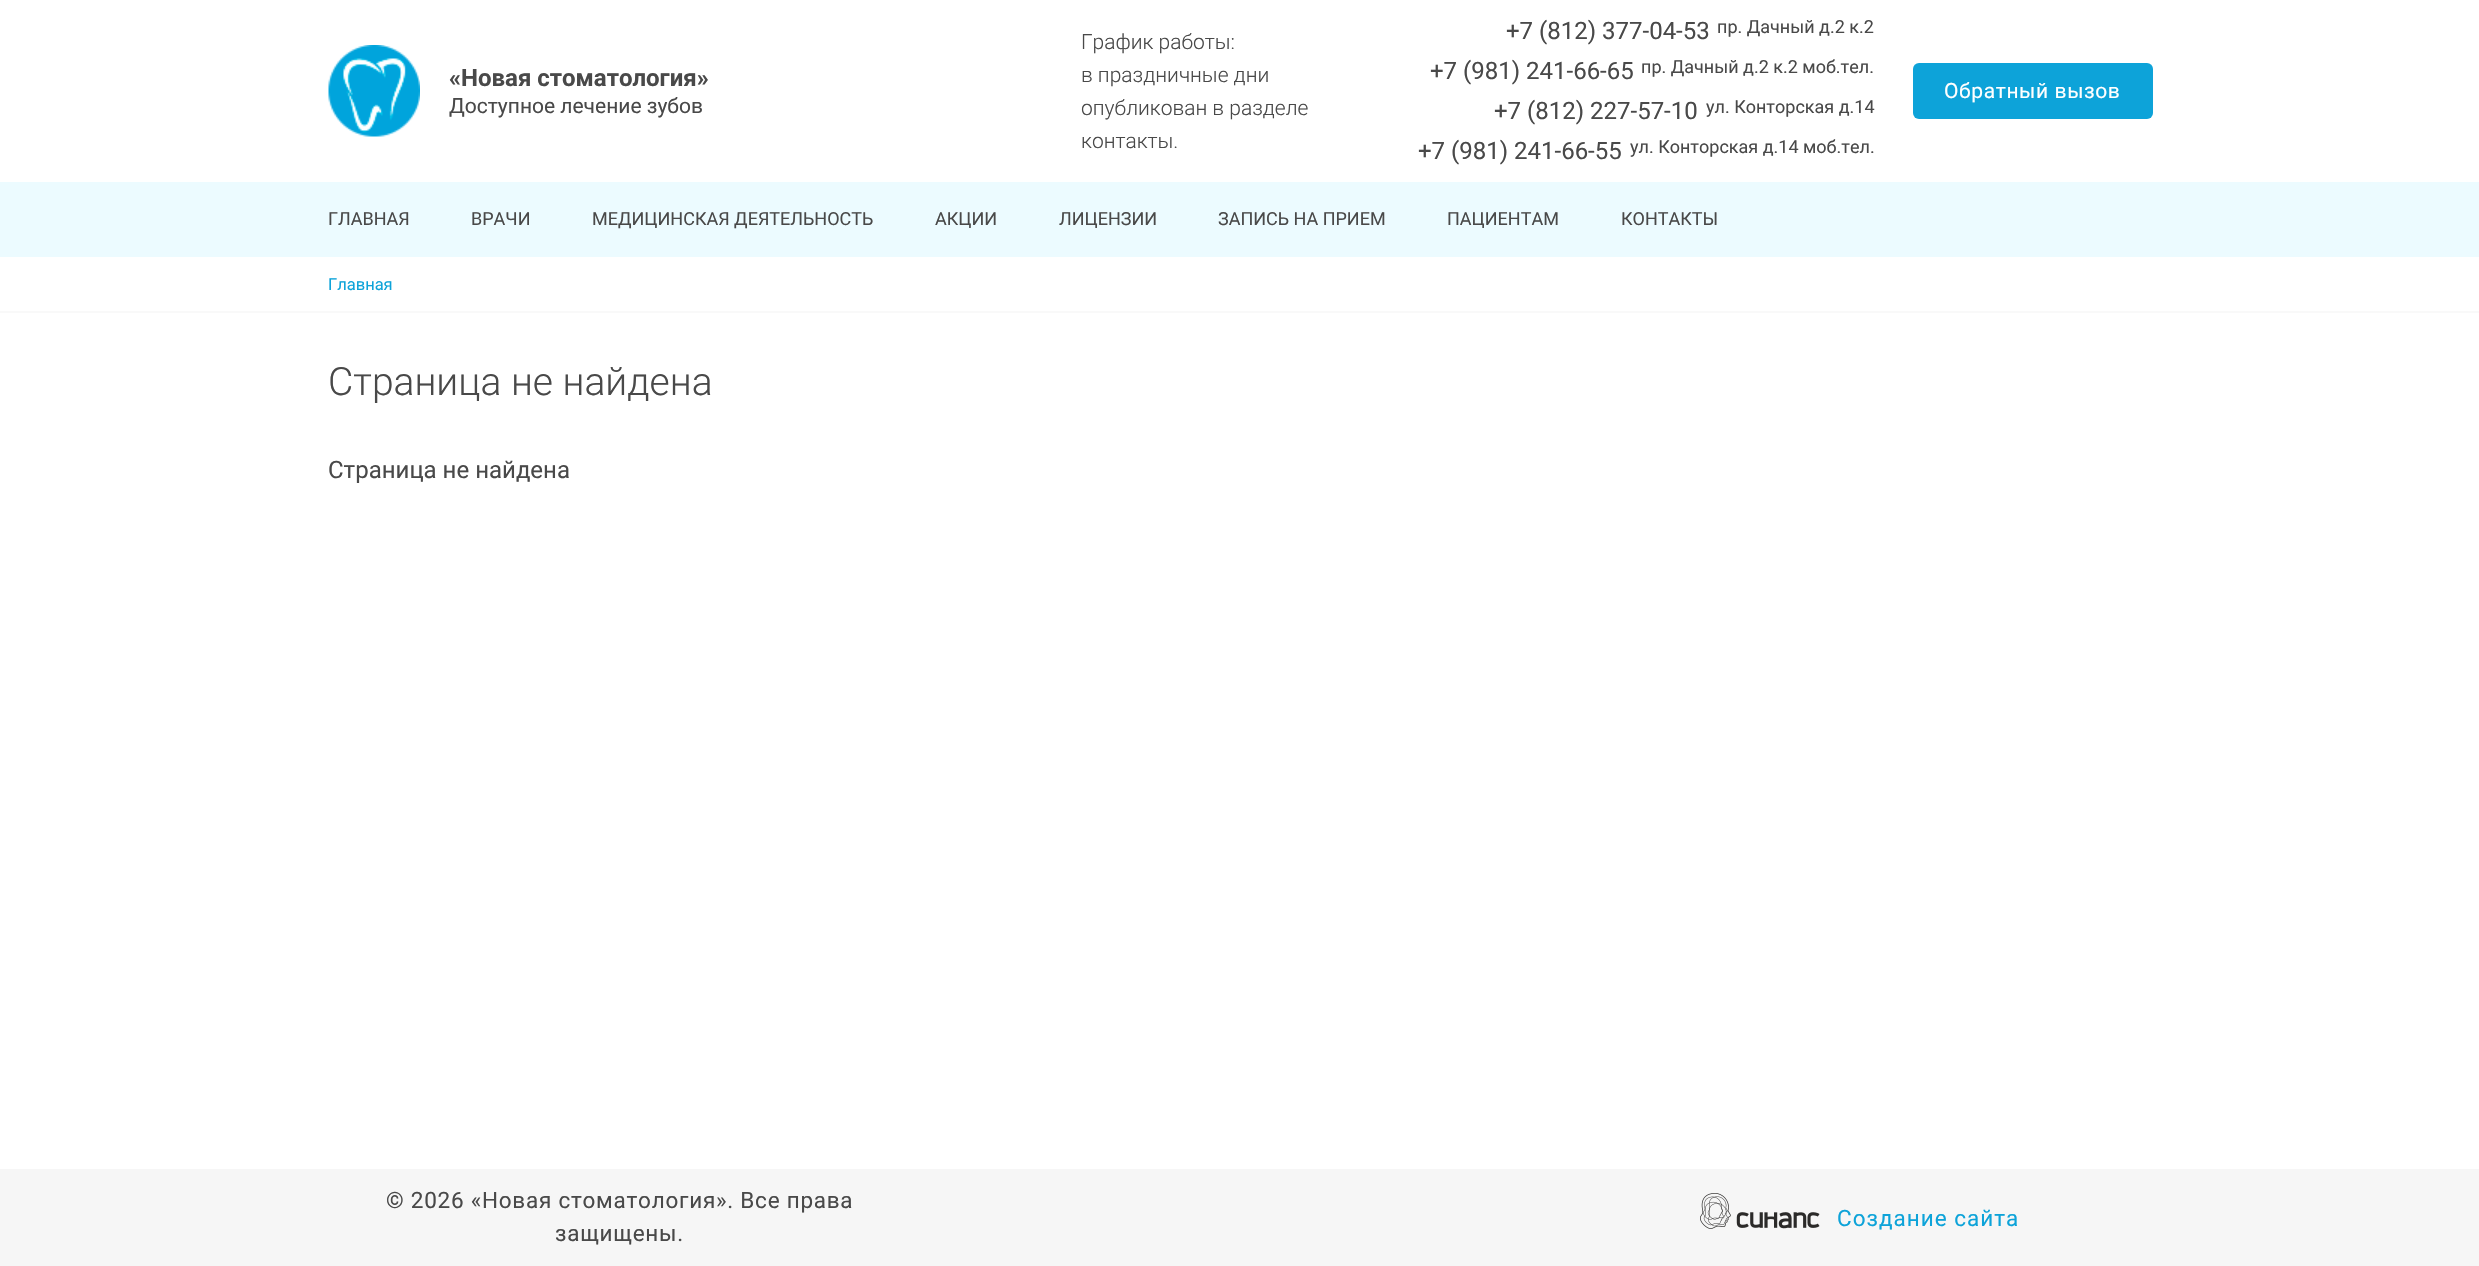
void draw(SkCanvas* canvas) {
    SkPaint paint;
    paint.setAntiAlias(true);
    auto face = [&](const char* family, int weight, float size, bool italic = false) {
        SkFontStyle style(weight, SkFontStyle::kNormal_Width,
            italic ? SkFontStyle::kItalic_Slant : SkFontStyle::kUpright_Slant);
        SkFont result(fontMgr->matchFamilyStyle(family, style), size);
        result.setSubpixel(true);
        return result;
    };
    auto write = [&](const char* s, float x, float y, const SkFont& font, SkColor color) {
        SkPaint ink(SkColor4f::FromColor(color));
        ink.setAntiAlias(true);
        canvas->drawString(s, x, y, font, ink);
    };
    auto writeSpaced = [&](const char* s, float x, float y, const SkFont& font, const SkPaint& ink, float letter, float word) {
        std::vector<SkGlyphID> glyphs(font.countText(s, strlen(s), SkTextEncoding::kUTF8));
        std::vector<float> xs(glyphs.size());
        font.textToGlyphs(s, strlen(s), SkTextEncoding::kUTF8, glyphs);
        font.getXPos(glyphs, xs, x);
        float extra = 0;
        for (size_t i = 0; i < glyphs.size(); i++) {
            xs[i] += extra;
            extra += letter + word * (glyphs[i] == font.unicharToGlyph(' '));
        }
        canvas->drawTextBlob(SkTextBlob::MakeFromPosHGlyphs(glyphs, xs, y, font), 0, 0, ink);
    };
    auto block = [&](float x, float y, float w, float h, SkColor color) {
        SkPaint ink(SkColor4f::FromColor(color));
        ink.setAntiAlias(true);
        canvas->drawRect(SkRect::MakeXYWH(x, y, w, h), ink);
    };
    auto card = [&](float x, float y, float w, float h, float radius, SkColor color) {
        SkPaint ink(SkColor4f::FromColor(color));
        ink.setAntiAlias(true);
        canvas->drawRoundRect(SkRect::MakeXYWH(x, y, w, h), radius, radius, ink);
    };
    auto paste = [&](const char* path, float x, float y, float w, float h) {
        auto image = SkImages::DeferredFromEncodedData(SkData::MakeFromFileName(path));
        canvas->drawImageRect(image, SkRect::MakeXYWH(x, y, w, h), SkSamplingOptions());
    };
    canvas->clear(SK_ColorWHITE);
    paste("pic1.png", 328, 45, 92, 92);
    auto kFont1 = face("Roboto", 700, 24);
    write("«Новая стоматология»", 449, 86, kFont1, SkColorSetRGB(73, 73, 73));
    auto kFont2 = face("Roboto", 400, 21);
    write("Доступное лечение зубов", 449, 113, kFont2, SkColorSetRGB(73, 73, 73));
    auto kFont3 = face("Roboto", 300, 21);
    write("График работы:", 1081, 49, kFont3, SkColorSetRGB(73, 73, 73));
    write("в праздничные дни", 1081, 82, kFont3, SkColorSetRGB(73, 73, 73));
    write("опубликован в разделе", 1081, 115, kFont3, SkColorSetRGB(73, 73, 73));
    write("контакты.", 1081, 148, kFont3, SkColorSetRGB(73, 73, 73));
    auto kFont4 = face("Roboto", 400, 24);
    write("+7 (812) 377-04-53", 1506, 39, kFont4, SkColorSetRGB(73, 73, 73));
    auto kFont5 = face("Roboto", 400, 18);
    write("пр. Дачный д.2 к.2", 1717, 33, kFont5, SkColorSetRGB(73, 73, 73));
    write("+7 (981) 241-66-65", 1430, 79, kFont4, SkColorSetRGB(73, 73, 73));
    write("пр. Дачный д.2 к.2 моб.тел.", 1641, 73, kFont5, SkColorSetRGB(73, 73, 73));
    write("+7 (812) 227-57-10", 1494, 119, kFont4, SkColorSetRGB(73, 73, 73));
    write("ул. Конторская д.14", 1706, 113, kFont5, SkColorSetRGB(73, 73, 73));
    write("+7 (981) 241-66-55", 1418, 159, kFont4, SkColorSetRGB(73, 73, 73));
    write("ул. Конторская д.14 моб.тел.", 1630, 153, kFont5, SkColorSetRGB(73, 73, 73));
    card(1913, 63, 240, 56, 6, SkColorSetRGB(13, 163, 217));
    paint.setColor(SK_ColorWHITE);
    writeSpaced("Обратный вызов", 1944, 98, kFont2, paint, 0.6f, 0);
    block(0, 182, 2479, 75, SkColorSetRGB(236, 251, 255));
    write("ГЛАВНАЯ", 328, 225, kFont5, SkColorSetRGB(73, 73, 73));
    write("ВРАЧИ", 471, 225, kFont5, SkColorSetRGB(73, 73, 73));
    write("МЕДИЦИНСКАЯ ДЕЯТЕЛЬНОСТЬ", 592, 225, kFont5, SkColorSetRGB(73, 73, 73));
    write("АКЦИИ", 935, 225, kFont5, SkColorSetRGB(73, 73, 73));
    write("ЛИЦЕНЗИИ", 1059, 225, kFont5, SkColorSetRGB(73, 73, 73));
    write("ЗАПИСЬ НА ПРИЕМ", 1218, 225, kFont5, SkColorSetRGB(73, 73, 73));
    write("ПАЦИЕНТАМ", 1447, 225, kFont5, SkColorSetRGB(73, 73, 73));
    write("КОНТАКТЫ", 1621, 225, kFont5, SkColorSetRGB(73, 73, 73));
    block(0, 311, 2479, 2, SkColorSetRGB(249, 249, 249));
    auto kFont6 = face("Roboto", 400, 16.5f);
    write("Главная", 328, 290, kFont6, SkColorSetRGB(13, 163, 217));
    auto kFont7 = face("Roboto", 300, 39);
    write("Страница не найдена", 328, 395, kFont7, SkColorSetRGB(73, 73, 73));
    write("Страница не найдена", 328, 478, kFont4, SkColorSetRGB(73, 73, 73));
    block(0, 1169, 2479, 97, SkColorSetRGB(246, 246, 246));
    auto kFont8 = face("Roboto", 400, 22.5f);
    paint.setColor(SkColorSetRGB(73, 73, 73));
    writeSpaced("© 2026 «Новая стоматология». Все права", 386, 1208, kFont8, paint, 0.75f, 0);
    writeSpaced("защищены.", 555, 1241, kFont8, paint, 0.75f, 0);
    paste("pic2.png", 1700, 1193, 120, 36);
    paint.setColor(SkColorSetRGB(13, 163, 217));
    writeSpaced("Создание сайта", 1837, 1226, kFont8, paint, 1, 0);
}
